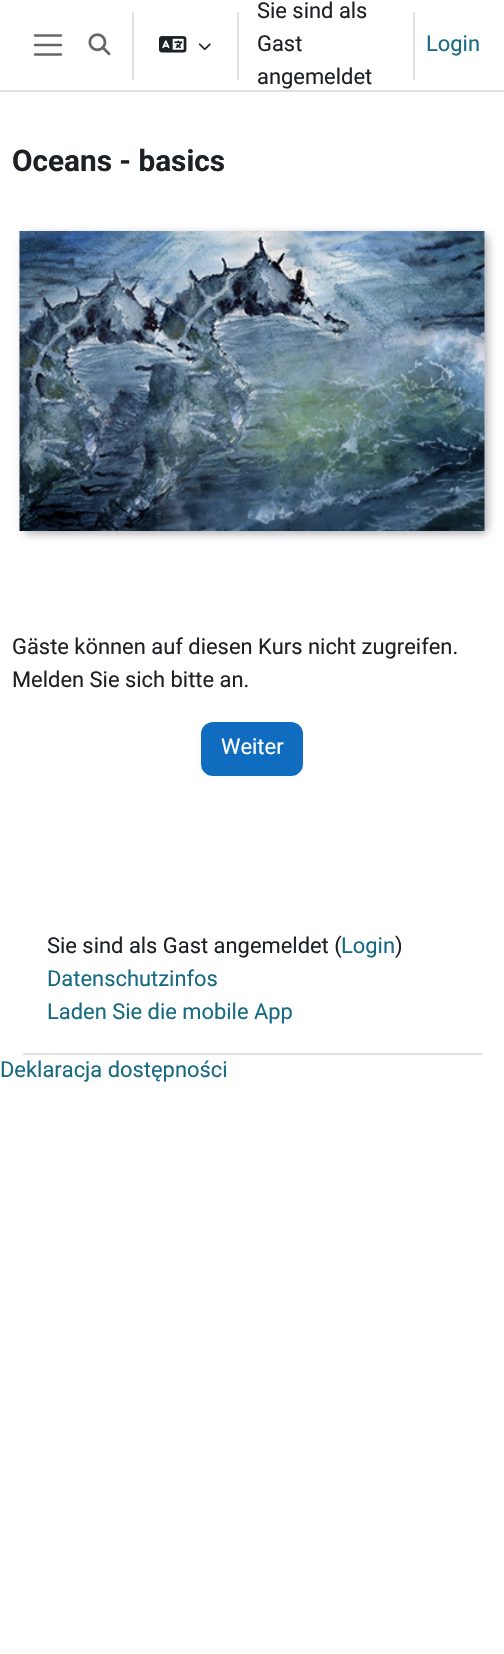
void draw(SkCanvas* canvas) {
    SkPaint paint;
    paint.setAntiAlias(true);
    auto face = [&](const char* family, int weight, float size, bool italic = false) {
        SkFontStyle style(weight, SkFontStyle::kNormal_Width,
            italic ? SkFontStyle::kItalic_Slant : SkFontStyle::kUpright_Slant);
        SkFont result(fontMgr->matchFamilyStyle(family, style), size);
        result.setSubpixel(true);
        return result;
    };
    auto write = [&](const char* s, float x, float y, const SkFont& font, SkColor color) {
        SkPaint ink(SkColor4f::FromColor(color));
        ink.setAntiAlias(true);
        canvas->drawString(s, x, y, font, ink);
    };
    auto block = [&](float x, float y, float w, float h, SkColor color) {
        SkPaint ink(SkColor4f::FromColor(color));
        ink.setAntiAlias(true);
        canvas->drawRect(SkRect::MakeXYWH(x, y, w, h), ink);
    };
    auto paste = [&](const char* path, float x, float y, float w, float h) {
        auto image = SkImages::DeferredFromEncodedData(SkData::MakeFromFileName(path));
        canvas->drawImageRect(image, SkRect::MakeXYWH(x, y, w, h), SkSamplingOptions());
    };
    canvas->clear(SK_ColorWHITE);
    block(0, 90, 504, 2, SkColorSetRGB(222, 226, 230));
    paint.setStyle(SkPaint::kStroke_Style);
    paint.setStrokeWidth(2.4f);
    paint.setStrokeCap(SkPaint::kRound_Cap);
    paint.setColor(SkColorSetRGB(102, 102, 102));
    canvas->drawPath(SkPathBuilder().moveTo(35, 35.5f).lineTo(61, 35.5f).moveTo(35, 45).lineTo(61, 45).moveTo(35, 54.5f).lineTo(61, 54.5f).detach(), paint);
    paste("pic1.png", 88, 33, 23, 23);
    block(132, 12, 2, 68, SkColorSetRGB(222, 226, 230));
    paste("pic2.png", 159, 36, 28, 17);
    paste("pic3.png", 198, 43, 13, 8);
    block(237, 12, 2, 68, SkColorSetRGB(222, 226, 230));
    auto kFont1 = face("Roboto", 400, 21.9f);
    write("Sie sind als", 257, 18, kFont1, SkColorSetRGB(29, 33, 37));
    write("Gast", 257, 51, kFont1, SkColorSetRGB(29, 33, 37));
    block(413, 12, 2, 68, SkColorSetRGB(222, 226, 230));
    write("Login", 426, 51, kFont1, SkColorSetRGB(22, 107, 131));
    write("angemeldet", 257, 84, kFont1, SkColorSetRGB(29, 33, 37));
    auto kFont2 = face("Roboto", 700, 29.75f);
    write("Oceans - basics", 12, 171, kFont2, SkColorSetRGB(29, 33, 37));
    paint.setStyle(SkPaint::kFill_Style);
    paint.setColor(SkColorSetRGB(177, 177, 183));
    paint.setMaskFilter(SkMaskFilter::MakeBlur(kNormal_SkBlurStyle, 4.5f));
    canvas->drawRoundRect(SkRect::MakeXYWH(23, 234, 465, 300), 8, 8, paint);
    paint.setMaskFilter(nullptr);
    paste("pic4.png", 19, 231, 466, 300);
    write("Gäste können auf diesen Kurs nicht zugreifen.", 12, 654, kFont1, SkColorSetRGB(29, 33, 37));
    write("Melden Sie sich bitte an.", 12, 687, kFont1, SkColorSetRGB(29, 33, 37));
    paint.setColor(SkColorSetRGB(15, 108, 191));
    canvas->drawRoundRect(SkRect::MakeXYWH(202, 723, 100, 52), 11, 11, paint);
    paint.setStyle(SkPaint::kStroke_Style);
    paint.setStrokeWidth(2);
    paint.setStrokeCap(SkPaint::kButt_Cap);
    canvas->drawRoundRect(SkRect::MakeXYWH(202, 723, 100, 52), 11, 11, paint);
    write("Weiter", 221, 754, kFont1, SK_ColorWHITE);
    block(23, 1053, 459, 2, SkColorSetRGB(222, 226, 230));
    write("Sie sind als Gast angemeldet (", 47, 953, kFont1, SkColorSetRGB(29, 33, 37));
    write("Login", 341, 953, kFont1, SkColorSetRGB(22, 107, 131));
    write(")", 395, 953, kFont1, SkColorSetRGB(29, 33, 37));
    write("Datenschutzinfos", 47, 986, kFont1, SkColorSetRGB(22, 107, 131));
    write("Laden Sie die mobile App", 47, 1019, kFont1, SkColorSetRGB(22, 107, 131));
    write("Deklaracja dostępności", 0, 1077, kFont1, SkColorSetRGB(22, 107, 131));
}
